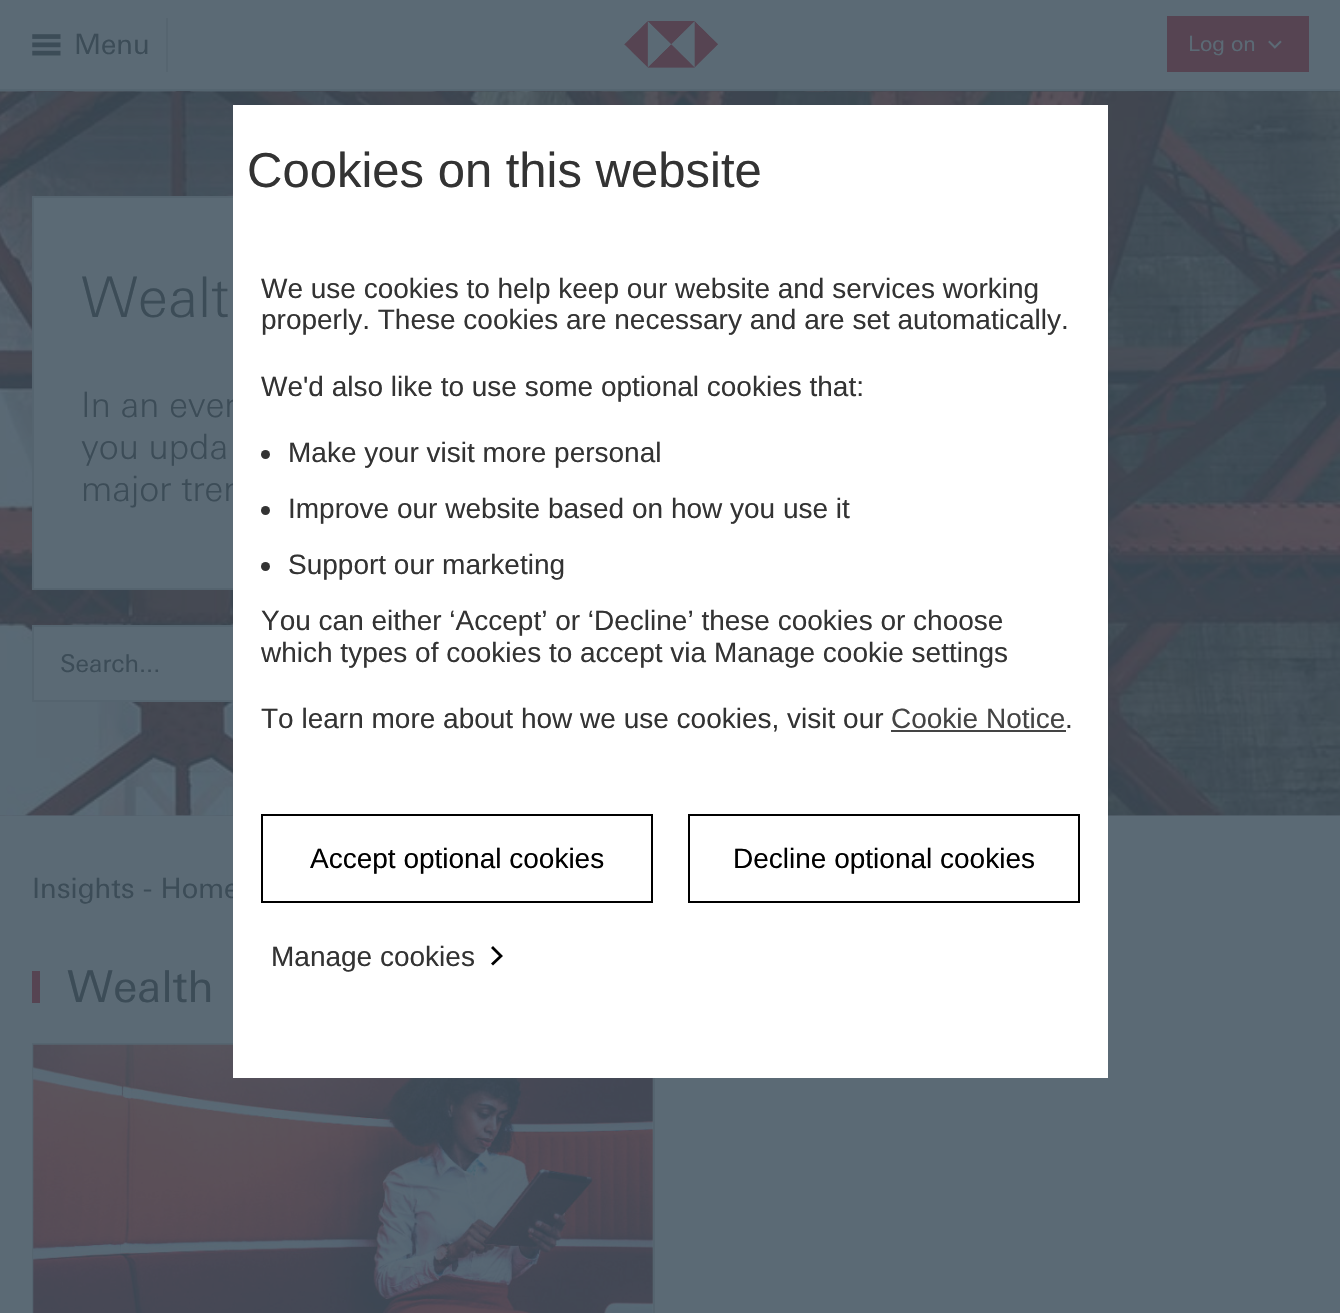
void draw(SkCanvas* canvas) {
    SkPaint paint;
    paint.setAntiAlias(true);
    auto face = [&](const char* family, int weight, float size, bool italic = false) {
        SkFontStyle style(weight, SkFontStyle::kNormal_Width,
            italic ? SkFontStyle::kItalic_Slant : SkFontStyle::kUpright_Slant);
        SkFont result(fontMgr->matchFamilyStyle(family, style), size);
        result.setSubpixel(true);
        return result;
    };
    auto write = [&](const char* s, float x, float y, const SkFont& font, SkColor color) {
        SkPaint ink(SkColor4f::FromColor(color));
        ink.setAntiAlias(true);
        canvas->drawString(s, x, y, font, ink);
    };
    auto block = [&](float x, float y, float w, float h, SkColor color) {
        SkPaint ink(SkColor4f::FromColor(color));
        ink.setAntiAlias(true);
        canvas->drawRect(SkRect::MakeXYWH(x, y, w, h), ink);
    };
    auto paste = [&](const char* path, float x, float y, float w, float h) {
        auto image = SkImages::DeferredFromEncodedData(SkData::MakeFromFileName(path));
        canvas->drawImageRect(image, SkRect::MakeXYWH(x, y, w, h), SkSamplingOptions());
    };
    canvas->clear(SkColorSetRGB(91, 106, 117));
    block(0, 89, 1340, 2, SkColorSetRGB(85, 101, 112));
    block(166, 18, 2, 54, SkColorSetRGB(86, 101, 112));
    paste("pic1.png", 32, 34, 29, 22);
    auto kFont1 = face("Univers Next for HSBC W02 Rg", 400, 28);
    write("Menu", 74, 54, kFont1, SkColorSetRGB(60, 76, 87));
    paste("pic2.png", 624, 21, 94, 47);
    block(1167, 16, 142, 56, SkColorSetRGB(86, 68, 82));
    auto kFont2 = face("Univers Next for HSBC W02 Rg", 400, 21);
    write("Log on", 1188, 51, kFont2, SkColorSetRGB(91, 106, 117));
    paste("pic3.png", 1268, 40, 14, 9);
    paste("pic4.png", 0, 91, 1340, 725);
    block(34, 198, 199, 390, SkColorSetRGB(91, 106, 117));
    paint.setStyle(SkPaint::kStroke_Style);
    paint.setStrokeWidth(2);
    paint.setColor(SkColorSetRGB(85, 100, 111));
    canvas->drawRect(SkRect::MakeXYWH(33, 197, 839, 392), paint);
    auto kFont3 = face("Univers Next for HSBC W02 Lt", 300, 56);
    write("Wealt", 81, 317, kFont3, SkColorSetRGB(60, 76, 87));
    auto kFont4 = face("Univers Next for HSBC W02 Lt", 300, 35);
    write("In an ever", 81, 417, kFont4, SkColorSetRGB(60, 76, 87));
    write("you upda", 81, 459, kFont4, SkColorSetRGB(60, 76, 87));
    write("major tren", 81, 501, kFont4, SkColorSetRGB(60, 76, 87));
    block(34, 627, 199, 73, SkColorSetRGB(91, 106, 117));
    canvas->drawRect(SkRect::MakeXYWH(33, 626, 839, 75), paint);
    auto kFont5 = face("Univers Next for HSBC W02 Rg", 400, 24.5f);
    write("Search...", 60, 672, kFont5, SkColorSetRGB(60, 76, 87));
    write("Insights - Home", 32, 898, kFont1, SkColorSetRGB(60, 76, 87));
    canvas->drawRect(SkRect::MakeXYWH(33, 1044, 621, 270), paint);
    paste("pic5.png", 33, 1044, 620, 269);
    block(233, 105, 875, 973, SK_ColorWHITE);
    auto kFont6 = face("Liberation Sans", 400, 49);
    write("Cookies on this website", 247, 187, kFont6, SkColorSetRGB(51, 51, 51));
    auto kFont7 = face("Liberation Sans", 400, 28);
    write("We use cookies to help keep our website and services working", 261, 298, kFont7, SkColorSetRGB(51, 51, 51));
    write("properly. These cookies are necessary and are set automatically.", 261, 329, kFont7, SkColorSetRGB(51, 51, 51));
    write("We'd also like to use some optional cookies that:", 261, 396, kFont7, SkColorSetRGB(51, 51, 51));
    paint.setStyle(SkPaint::kFill_Style);
    paint.setColor(SkColorSetRGB(51, 51, 51));
    canvas->drawCircle(265.5f, 454.5f, 4.5f, paint);
    write("Make your visit more personal", 288, 462, kFont7, SkColorSetRGB(51, 51, 51));
    canvas->drawCircle(265.5f, 510.5f, 4.5f, paint);
    write("Improve our website based on how you use it", 288, 518, kFont7, SkColorSetRGB(51, 51, 51));
    canvas->drawCircle(265.5f, 566.5f, 4.5f, paint);
    write("Support our marketing", 288, 574, kFont7, SkColorSetRGB(51, 51, 51));
    write("You can either ‘Accept’ or ‘Decline’ these cookies or choose", 261, 630, kFont7, SkColorSetRGB(51, 51, 51));
    write("which types of cookies to accept via Manage cookie settings", 261, 662, kFont7, SkColorSetRGB(51, 51, 51));
    write("To learn more about how we use cookies, visit our", 261, 728, kFont7, SkColorSetRGB(51, 51, 51));
    write("Cookie Notice", 891, 728, kFont7, SkColorSetRGB(68, 68, 68));
    block(891, 730, 175, 2, SkColorSetRGB(68, 68, 68));
    write(".", 1065, 728, kFont7, SkColorSetRGB(51, 51, 51));
    paint.setStyle(SkPaint::kStroke_Style);
    paint.setColor(SK_ColorBLACK);
    canvas->drawRect(SkRect::MakeXYWH(262, 815, 390, 87), paint);
    write("Accept optional cookies", 310, 868, kFont7, SK_ColorBLACK);
    canvas->drawRect(SkRect::MakeXYWH(689, 815, 390, 87), paint);
    write("Decline optional cookies", 733, 868, kFont7, SK_ColorBLACK);
    write("Manage cookies", 271, 966, kFont7, SkColorSetRGB(51, 51, 51));
    paint.setStyle(SkPaint::kFill_Style);
    canvas->drawPath(SkPathBuilder().moveTo(503, 956).lineTo(493, 965.5f).lineTo(491, 963.5f).lineTo(499, 956).lineTo(491, 948).lineTo(493, 946).close().detach(), paint);
    block(32, 971, 8, 32, SkColorSetRGB(86, 68, 82));
    auto kFont8 = face("Univers Next for HSBC W02 Rg", 400, 44);
    write("Wealth", 67, 1002, kFont8, SkColorSetRGB(60, 76, 87));
}
